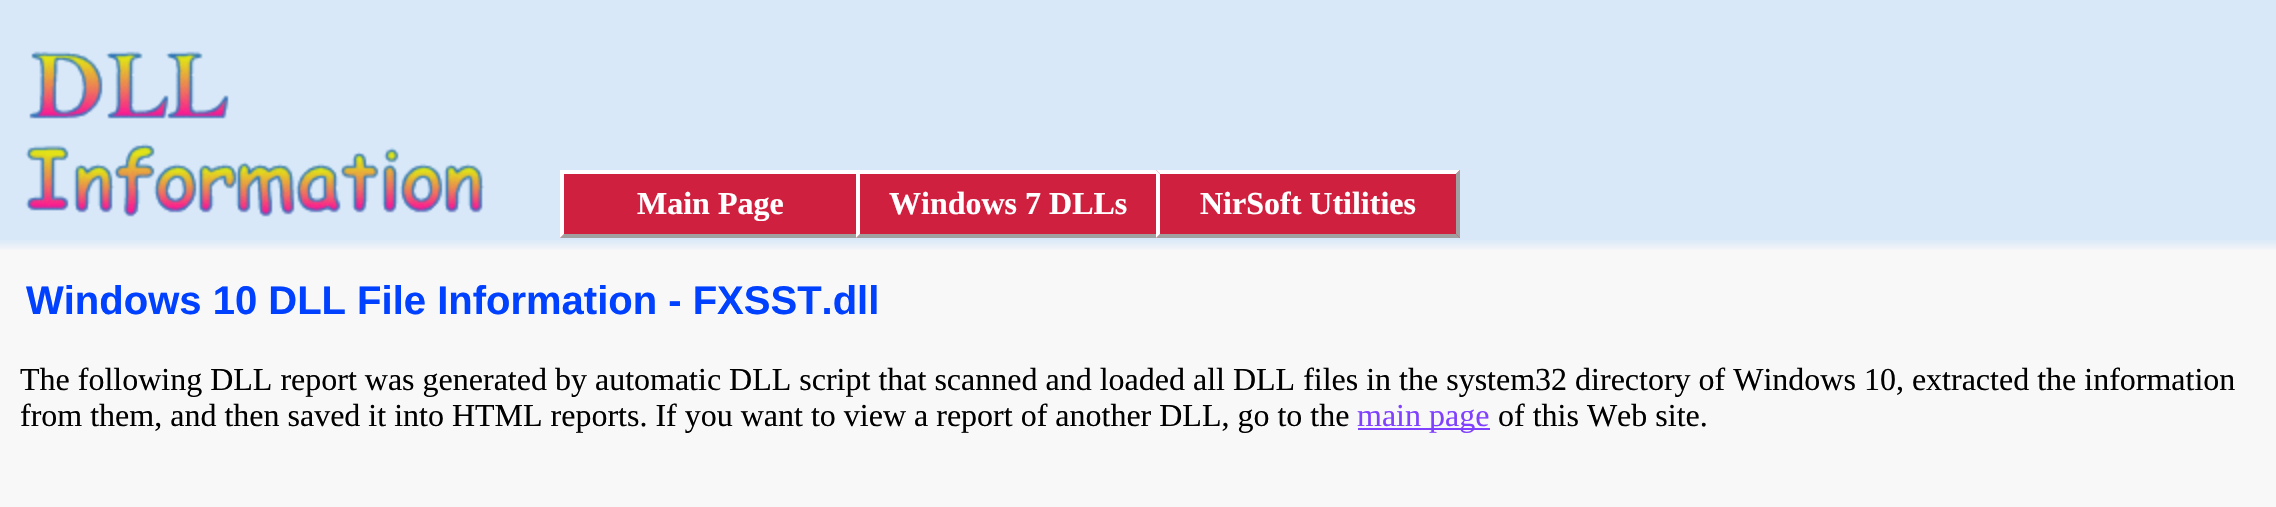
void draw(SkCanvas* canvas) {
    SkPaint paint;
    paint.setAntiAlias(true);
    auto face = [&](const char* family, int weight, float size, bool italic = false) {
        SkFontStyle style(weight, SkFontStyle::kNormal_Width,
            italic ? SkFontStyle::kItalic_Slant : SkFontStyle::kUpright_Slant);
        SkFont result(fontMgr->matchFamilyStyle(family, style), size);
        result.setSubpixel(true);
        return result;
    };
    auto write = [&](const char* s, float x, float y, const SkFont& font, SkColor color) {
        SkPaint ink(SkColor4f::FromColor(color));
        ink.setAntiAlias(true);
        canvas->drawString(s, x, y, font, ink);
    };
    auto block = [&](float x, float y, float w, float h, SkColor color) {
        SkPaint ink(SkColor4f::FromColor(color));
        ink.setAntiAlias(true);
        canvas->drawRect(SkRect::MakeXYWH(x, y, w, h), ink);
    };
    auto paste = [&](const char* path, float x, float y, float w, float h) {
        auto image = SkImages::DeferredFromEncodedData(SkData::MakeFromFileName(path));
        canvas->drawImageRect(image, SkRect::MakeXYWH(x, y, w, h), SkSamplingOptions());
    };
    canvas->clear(SkColorSetRGB(248, 248, 248));
    block(0, 0, 2276, 240, SkColorSetRGB(216, 232, 248));
    paste("pic1.png", 25, 51, 460, 166);
    block(560, 170, 900, 68, SkColorSetRGB(208, 32, 64));
    block(560, 170, 596, 4, SK_ColorWHITE);
    paint.setColor(SkColorSetRGB(160, 160, 160));
    canvas->drawPath(SkPathBuilder().moveTo(856, 238).lineTo(560, 238).lineTo(564, 234).lineTo(856, 234).close().detach(), paint);
    paint.setColor(SK_ColorWHITE);
    canvas->drawPath(SkPathBuilder().moveTo(560, 238).lineTo(560, 170).lineTo(564, 174).lineTo(564, 234).close().detach(), paint);
    auto kFont1 = face("Liberation Serif", 700, 32);
    write("Main Page", 637, 214, kFont1, SK_ColorWHITE);
    paint.setColor(SkColorSetRGB(160, 160, 160));
    canvas->drawPath(SkPathBuilder().moveTo(1156, 238).lineTo(856, 238).lineTo(860, 234).lineTo(1156, 234).close().detach(), paint);
    paint.setColor(SK_ColorWHITE);
    canvas->drawPath(SkPathBuilder().moveTo(856, 238).lineTo(856, 170).lineTo(860, 174).lineTo(860, 234).close().detach(), paint);
    write("Windows 7 DLLs", 889, 214, kFont1, SK_ColorWHITE);
    canvas->drawPath(SkPathBuilder().moveTo(1156, 170).lineTo(1460, 170).lineTo(1456, 174).lineTo(1160, 174).close().detach(), paint);
    paint.setColor(SkColorSetRGB(160, 160, 160));
    canvas->drawPath(SkPathBuilder().moveTo(1460, 170).lineTo(1460, 238).lineTo(1456, 234).lineTo(1456, 174).close().detach(), paint);
    canvas->drawPath(SkPathBuilder().moveTo(1460, 238).lineTo(1156, 238).lineTo(1160, 234).lineTo(1456, 234).close().detach(), paint);
    paint.setColor(SK_ColorWHITE);
    canvas->drawPath(SkPathBuilder().moveTo(1156, 238).lineTo(1156, 170).lineTo(1160, 174).lineTo(1160, 234).close().detach(), paint);
    write("NirSoft Utilities", 1200, 214, kFont1, SK_ColorWHITE);
    paste("pic2.png", 0, 240, 2276, 10);
    auto kFont2 = face("Liberation Sans", 700, 40);
    write("Windows 10 DLL File Information - FXSST.dll", 26, 314, kFont2, SkColorSetRGB(0, 64, 255));
    auto kFont3 = face("Liberation Serif", 400, 32);
    write("The following DLL report was generated by automatic DLL script that scanned and loaded all DLL files in the system32 directory of Windows 10, extracted the information", 20, 390, kFont3, SK_ColorBLACK);
    write("from them, and then saved it into HTML reports. If you want to view a report of another DLL, go to the", 20, 426, kFont3, SK_ColorBLACK);
    block(1358, 428, 132, 2, SkColorSetRGB(128, 64, 255));
    write("main page", 1357, 426, kFont3, SkColorSetRGB(128, 64, 255));
    write("of this Web site.", 1498, 426, kFont3, SK_ColorBLACK);
}
